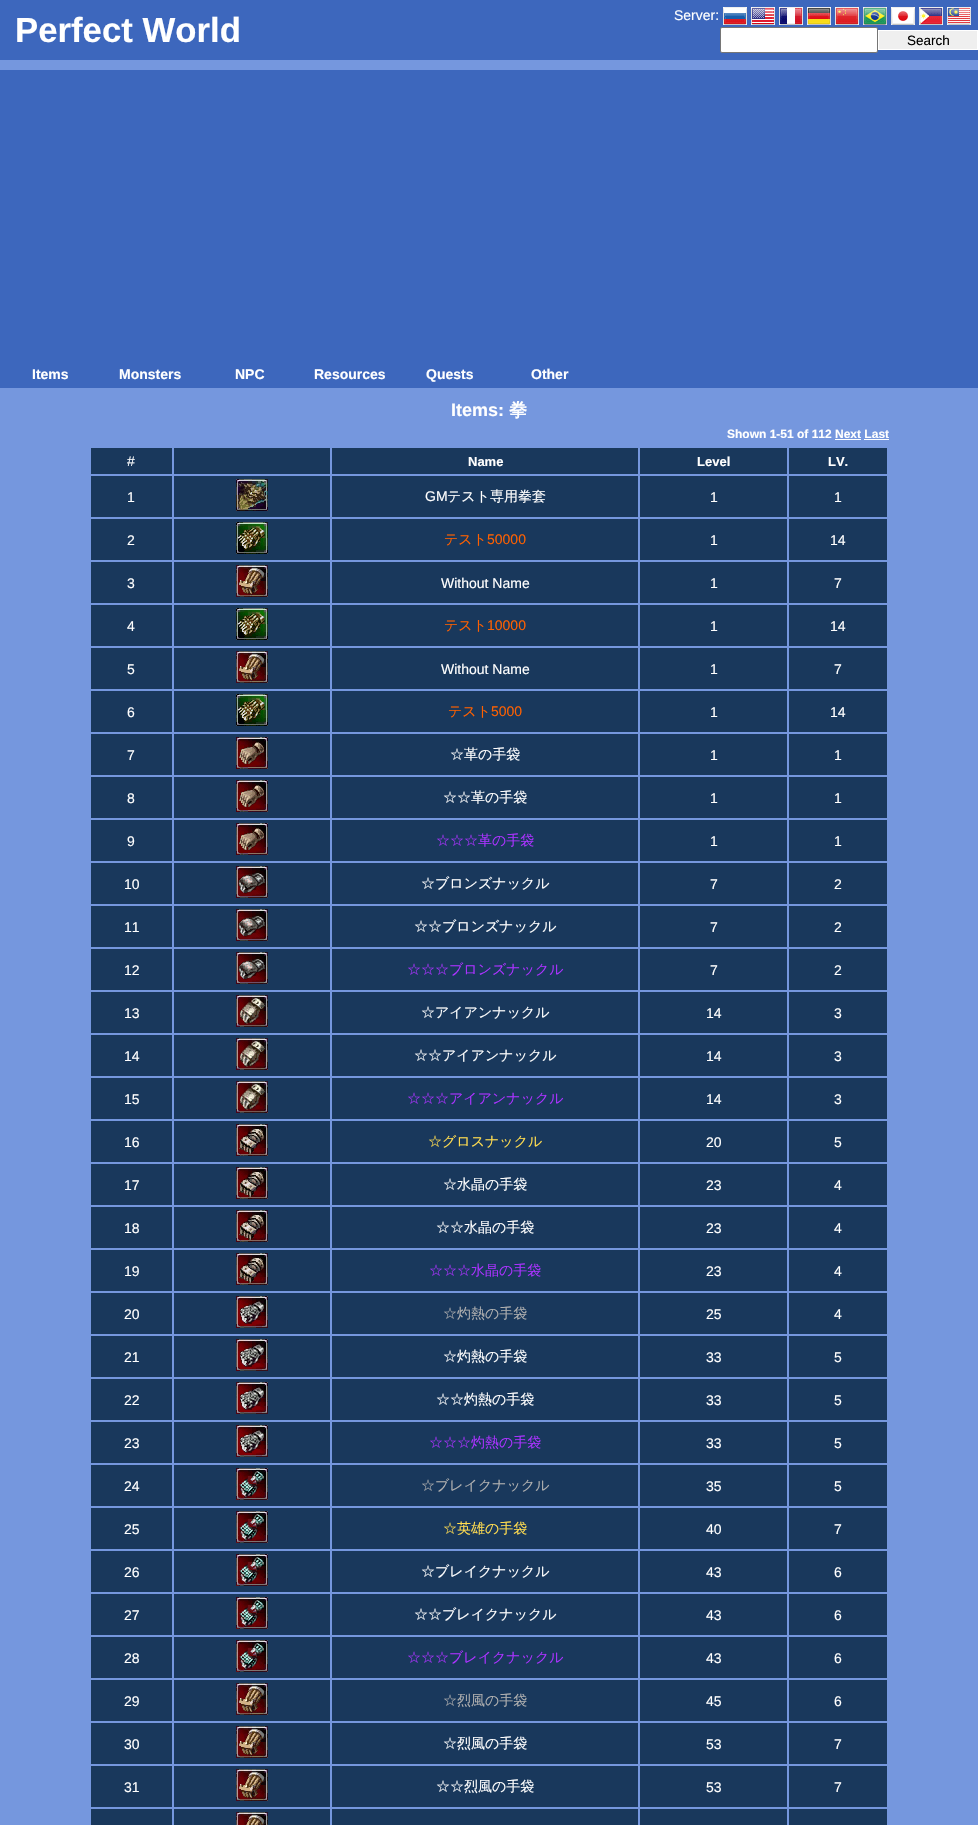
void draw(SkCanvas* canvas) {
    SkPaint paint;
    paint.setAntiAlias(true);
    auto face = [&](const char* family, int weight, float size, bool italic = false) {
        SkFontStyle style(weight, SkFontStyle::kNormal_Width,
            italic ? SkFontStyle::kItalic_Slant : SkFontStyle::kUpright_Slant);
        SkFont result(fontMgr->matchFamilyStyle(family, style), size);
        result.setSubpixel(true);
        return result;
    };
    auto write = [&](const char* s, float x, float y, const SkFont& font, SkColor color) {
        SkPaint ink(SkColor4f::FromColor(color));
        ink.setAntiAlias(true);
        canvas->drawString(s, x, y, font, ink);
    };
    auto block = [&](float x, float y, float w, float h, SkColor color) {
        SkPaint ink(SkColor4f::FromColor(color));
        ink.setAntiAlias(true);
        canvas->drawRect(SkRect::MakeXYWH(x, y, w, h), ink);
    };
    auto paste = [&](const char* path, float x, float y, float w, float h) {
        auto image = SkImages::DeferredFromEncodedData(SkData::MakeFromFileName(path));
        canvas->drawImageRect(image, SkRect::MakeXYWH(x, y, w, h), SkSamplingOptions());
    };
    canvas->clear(SkColorSetRGB(117, 151, 222));
    block(0, 0, 978, 60, SkColorSetRGB(61, 103, 189));
    auto kFont1 = face("Liberation Sans", 700, 34.75f);
    write("Perfect World", 15, 42, kFont1, SK_ColorWHITE);
    auto kFont2 = face("Liberation Sans", 400, 14);
    write("Server:", 674, 20, kFont2, SK_ColorWHITE);
    paste("pic1.png", 723, 7, 24, 18);
    paste("pic2.png", 751, 7, 24, 18);
    paste("pic3.png", 779, 7, 24, 18);
    paste("pic4.png", 807, 7, 24, 18);
    paste("pic5.png", 835, 7, 24, 18);
    paste("pic6.png", 863, 7, 24, 18);
    paste("pic7.png", 891, 7, 24, 18);
    paste("pic8.png", 919, 7, 24, 18);
    paste("pic9.png", 947, 7, 24, 18);
    paint.setColor(SK_ColorWHITE);
    canvas->drawRoundRect(SkRect::MakeXYWH(720.5f, 27.5f, 157, 25), 1.5f, 1.5f, paint);
    paint.setStyle(SkPaint::kStroke_Style);
    paint.setStrokeWidth(1);
    paint.setColor(SkColorSetRGB(118, 118, 118));
    canvas->drawRoundRect(SkRect::MakeXYWH(720.5f, 27.5f, 157, 25), 1.5f, 1.5f, paint);
    paint.setStyle(SkPaint::kFill_Style);
    paint.setColor(SkColorSetRGB(239, 239, 239));
    canvas->drawRect(SkRect::MakeXYWH(878.5f, 30.5f, 99, 19), paint);
    paint.setStyle(SkPaint::kStroke_Style);
    paint.setColor(SK_ColorWHITE);
    canvas->drawRect(SkRect::MakeXYWH(878.5f, 30.5f, 99, 19), paint);
    auto kFont3 = face("Liberation Sans", 400, 13.5f);
    write("Search", 907, 45, kFont3, SK_ColorBLACK);
    block(0, 70, 978, 318, SkColorSetRGB(61, 103, 189));
    auto kFont4 = face("Liberation Sans", 700, 14);
    write("Items", 32, 379, kFont4, SK_ColorWHITE);
    write("Monsters", 119, 379, kFont4, SK_ColorWHITE);
    write("NPC", 235, 379, kFont4, SK_ColorWHITE);
    write("Resources", 314, 379, kFont4, SK_ColorWHITE);
    write("Quests", 426, 379, kFont4, SK_ColorWHITE);
    write("Other", 531, 379, kFont4, SK_ColorWHITE);
    auto kFont5 = face("Liberation Sans", 700, 18);
    write("Items:", 451, 416, kFont5, SK_ColorWHITE);
    auto kFont6 = face("WenQuanYi Zen Hei", 700, 18);
    write("拳", 509, 416, kFont6, SK_ColorWHITE);
    auto kFont7 = face("Liberation Sans", 700, 12);
    write("Shown 1-51 of 112 Next Last", 727, 438, kFont7, SK_ColorWHITE);
    block(835, 439, 26, 1, SK_ColorWHITE);
    block(864, 439, 25, 1, SK_ColorWHITE);
    block(91, 448, 81, 26, SkColorSetRGB(25, 56, 92));
    write("#", 127, 466, kFont2, SK_ColorWHITE);
    block(174, 448, 156, 26, SkColorSetRGB(25, 56, 92));
    block(332, 448, 306, 26, SkColorSetRGB(25, 56, 92));
    auto kFont8 = face("Liberation Sans", 700, 13);
    write("Name", 468, 466, kFont8, SK_ColorWHITE);
    block(640, 448, 147, 26, SkColorSetRGB(25, 56, 92));
    write("Level", 697, 466, kFont8, SK_ColorWHITE);
    block(789, 448, 98, 26, SkColorSetRGB(25, 56, 92));
    write("LV.", 828, 466, kFont8, SK_ColorWHITE);
    block(91, 476, 81, 41, SkColorSetRGB(25, 56, 92));
    write("1", 127, 502, kFont2, SK_ColorWHITE);
    block(174, 476, 156, 41, SkColorSetRGB(25, 56, 92));
    paste("pic10.png", 236, 479, 32, 32);
    block(332, 476, 306, 41, SkColorSetRGB(25, 56, 92));
    write("GM", 425, 501, kFont2, SK_ColorWHITE);
    auto kFont9 = face("WenQuanYi Zen Hei", 500, 14);
    write("テスト専用拳套", 447, 501, kFont9, SK_ColorWHITE);
    block(640, 476, 147, 41, SkColorSetRGB(25, 56, 92));
    write("1", 710, 502, kFont2, SK_ColorWHITE);
    block(789, 476, 98, 41, SkColorSetRGB(25, 56, 92));
    write("1", 834, 502, kFont2, SK_ColorWHITE);
    block(91, 519, 81, 41, SkColorSetRGB(25, 56, 92));
    write("2", 127, 545, kFont2, SK_ColorWHITE);
    block(174, 519, 156, 41, SkColorSetRGB(25, 56, 92));
    paste("pic11.png", 236, 522, 32, 32);
    block(332, 519, 306, 41, SkColorSetRGB(25, 56, 92));
    write("テスト", 444, 544, kFont9, SkColorSetRGB(255, 96, 0));
    write("50000", 487, 544, kFont2, SkColorSetRGB(255, 96, 0));
    block(640, 519, 147, 41, SkColorSetRGB(25, 56, 92));
    write("1", 710, 545, kFont2, SK_ColorWHITE);
    block(789, 519, 98, 41, SkColorSetRGB(25, 56, 92));
    write("14", 830, 545, kFont2, SK_ColorWHITE);
    block(91, 562, 81, 41, SkColorSetRGB(25, 56, 92));
    write("3", 127, 588, kFont2, SK_ColorWHITE);
    block(174, 562, 156, 41, SkColorSetRGB(25, 56, 92));
    paste("pic12.png", 236, 565, 32, 32);
    block(332, 562, 306, 41, SkColorSetRGB(25, 56, 92));
    write("Without Name", 441, 588, kFont2, SK_ColorWHITE);
    block(640, 562, 147, 41, SkColorSetRGB(25, 56, 92));
    write("1", 710, 588, kFont2, SK_ColorWHITE);
    block(789, 562, 98, 41, SkColorSetRGB(25, 56, 92));
    write("7", 834, 588, kFont2, SK_ColorWHITE);
    block(91, 605, 81, 41, SkColorSetRGB(25, 56, 92));
    write("4", 127, 631, kFont2, SK_ColorWHITE);
    block(174, 605, 156, 41, SkColorSetRGB(25, 56, 92));
    paste("pic11.png", 236, 608, 32, 32);
    block(332, 605, 306, 41, SkColorSetRGB(25, 56, 92));
    write("テスト", 444, 630, kFont9, SkColorSetRGB(255, 96, 0));
    write("10000", 487, 630, kFont2, SkColorSetRGB(255, 96, 0));
    block(640, 605, 147, 41, SkColorSetRGB(25, 56, 92));
    write("1", 710, 631, kFont2, SK_ColorWHITE);
    block(789, 605, 98, 41, SkColorSetRGB(25, 56, 92));
    write("14", 830, 631, kFont2, SK_ColorWHITE);
    block(91, 648, 81, 41, SkColorSetRGB(25, 56, 92));
    write("5", 127, 674, kFont2, SK_ColorWHITE);
    block(174, 648, 156, 41, SkColorSetRGB(25, 56, 92));
    paste("pic12.png", 236, 651, 32, 32);
    block(332, 648, 306, 41, SkColorSetRGB(25, 56, 92));
    write("Without Name", 441, 674, kFont2, SK_ColorWHITE);
    block(640, 648, 147, 41, SkColorSetRGB(25, 56, 92));
    write("1", 710, 674, kFont2, SK_ColorWHITE);
    block(789, 648, 98, 41, SkColorSetRGB(25, 56, 92));
    write("7", 834, 674, kFont2, SK_ColorWHITE);
    block(91, 691, 81, 41, SkColorSetRGB(25, 56, 92));
    write("6", 127, 717, kFont2, SK_ColorWHITE);
    block(174, 691, 156, 41, SkColorSetRGB(25, 56, 92));
    paste("pic11.png", 236, 694, 32, 32);
    block(332, 691, 306, 41, SkColorSetRGB(25, 56, 92));
    write("テスト", 448, 716, kFont9, SkColorSetRGB(255, 96, 0));
    write("5000", 491, 716, kFont2, SkColorSetRGB(255, 96, 0));
    block(640, 691, 147, 41, SkColorSetRGB(25, 56, 92));
    write("1", 710, 717, kFont2, SK_ColorWHITE);
    block(789, 691, 98, 41, SkColorSetRGB(25, 56, 92));
    write("14", 830, 717, kFont2, SK_ColorWHITE);
    block(91, 734, 81, 41, SkColorSetRGB(25, 56, 92));
    write("7", 127, 760, kFont2, SK_ColorWHITE);
    block(174, 734, 156, 41, SkColorSetRGB(25, 56, 92));
    paste("pic13.png", 236, 737, 32, 32);
    block(332, 734, 306, 41, SkColorSetRGB(25, 56, 92));
    write("☆革の手袋", 450, 759, kFont9, SK_ColorWHITE);
    block(640, 734, 147, 41, SkColorSetRGB(25, 56, 92));
    write("1", 710, 760, kFont2, SK_ColorWHITE);
    block(789, 734, 98, 41, SkColorSetRGB(25, 56, 92));
    write("1", 834, 760, kFont2, SK_ColorWHITE);
    block(91, 777, 81, 41, SkColorSetRGB(25, 56, 92));
    write("8", 127, 803, kFont2, SK_ColorWHITE);
    block(174, 777, 156, 41, SkColorSetRGB(25, 56, 92));
    paste("pic13.png", 236, 780, 32, 32);
    block(332, 777, 306, 41, SkColorSetRGB(25, 56, 92));
    write("☆☆革の手袋", 443, 802, kFont9, SK_ColorWHITE);
    block(640, 777, 147, 41, SkColorSetRGB(25, 56, 92));
    write("1", 710, 803, kFont2, SK_ColorWHITE);
    block(789, 777, 98, 41, SkColorSetRGB(25, 56, 92));
    write("1", 834, 803, kFont2, SK_ColorWHITE);
    block(91, 820, 81, 41, SkColorSetRGB(25, 56, 92));
    write("9", 127, 846, kFont2, SK_ColorWHITE);
    block(174, 820, 156, 41, SkColorSetRGB(25, 56, 92));
    paste("pic13.png", 236, 823, 32, 32);
    block(332, 820, 306, 41, SkColorSetRGB(25, 56, 92));
    write("☆☆☆革の手袋", 436, 845, kFont9, SkColorSetRGB(170, 50, 255));
    block(640, 820, 147, 41, SkColorSetRGB(25, 56, 92));
    write("1", 710, 846, kFont2, SK_ColorWHITE);
    block(789, 820, 98, 41, SkColorSetRGB(25, 56, 92));
    write("1", 834, 846, kFont2, SK_ColorWHITE);
    block(91, 863, 81, 41, SkColorSetRGB(25, 56, 92));
    write("10", 124, 889, kFont2, SK_ColorWHITE);
    block(174, 863, 156, 41, SkColorSetRGB(25, 56, 92));
    paste("pic14.png", 236, 866, 32, 32);
    block(332, 863, 306, 41, SkColorSetRGB(25, 56, 92));
    write("☆ブロンズナックル", 421, 888, kFont9, SK_ColorWHITE);
    block(640, 863, 147, 41, SkColorSetRGB(25, 56, 92));
    write("7", 710, 889, kFont2, SK_ColorWHITE);
    block(789, 863, 98, 41, SkColorSetRGB(25, 56, 92));
    write("2", 834, 889, kFont2, SK_ColorWHITE);
    block(91, 906, 81, 41, SkColorSetRGB(25, 56, 92));
    write("11", 124, 932, kFont2, SK_ColorWHITE);
    block(174, 906, 156, 41, SkColorSetRGB(25, 56, 92));
    paste("pic14.png", 236, 909, 32, 32);
    block(332, 906, 306, 41, SkColorSetRGB(25, 56, 92));
    write("☆☆ブロンズナックル", 414, 931, kFont9, SK_ColorWHITE);
    block(640, 906, 147, 41, SkColorSetRGB(25, 56, 92));
    write("7", 710, 932, kFont2, SK_ColorWHITE);
    block(789, 906, 98, 41, SkColorSetRGB(25, 56, 92));
    write("2", 834, 932, kFont2, SK_ColorWHITE);
    block(91, 949, 81, 41, SkColorSetRGB(25, 56, 92));
    write("12", 124, 975, kFont2, SK_ColorWHITE);
    block(174, 949, 156, 41, SkColorSetRGB(25, 56, 92));
    paste("pic14.png", 236, 952, 32, 32);
    block(332, 949, 306, 41, SkColorSetRGB(25, 56, 92));
    write("☆☆☆ブロンズナックル", 407, 974, kFont9, SkColorSetRGB(170, 50, 255));
    block(640, 949, 147, 41, SkColorSetRGB(25, 56, 92));
    write("7", 710, 975, kFont2, SK_ColorWHITE);
    block(789, 949, 98, 41, SkColorSetRGB(25, 56, 92));
    write("2", 834, 975, kFont2, SK_ColorWHITE);
    block(91, 992, 81, 41, SkColorSetRGB(25, 56, 92));
    write("13", 124, 1018, kFont2, SK_ColorWHITE);
    block(174, 992, 156, 41, SkColorSetRGB(25, 56, 92));
    paste("pic15.png", 236, 995, 32, 32);
    block(332, 992, 306, 41, SkColorSetRGB(25, 56, 92));
    write("☆アイアンナックル", 421, 1017, kFont9, SK_ColorWHITE);
    block(640, 992, 147, 41, SkColorSetRGB(25, 56, 92));
    write("14", 706, 1018, kFont2, SK_ColorWHITE);
    block(789, 992, 98, 41, SkColorSetRGB(25, 56, 92));
    write("3", 834, 1018, kFont2, SK_ColorWHITE);
    block(91, 1035, 81, 41, SkColorSetRGB(25, 56, 92));
    write("14", 124, 1061, kFont2, SK_ColorWHITE);
    block(174, 1035, 156, 41, SkColorSetRGB(25, 56, 92));
    paste("pic15.png", 236, 1038, 32, 32);
    block(332, 1035, 306, 41, SkColorSetRGB(25, 56, 92));
    write("☆☆アイアンナックル", 414, 1060, kFont9, SK_ColorWHITE);
    block(640, 1035, 147, 41, SkColorSetRGB(25, 56, 92));
    write("14", 706, 1061, kFont2, SK_ColorWHITE);
    block(789, 1035, 98, 41, SkColorSetRGB(25, 56, 92));
    write("3", 834, 1061, kFont2, SK_ColorWHITE);
    block(91, 1078, 81, 41, SkColorSetRGB(25, 56, 92));
    write("15", 124, 1104, kFont2, SK_ColorWHITE);
    block(174, 1078, 156, 41, SkColorSetRGB(25, 56, 92));
    paste("pic15.png", 236, 1081, 32, 32);
    block(332, 1078, 306, 41, SkColorSetRGB(25, 56, 92));
    write("☆☆☆アイアンナックル", 407, 1103, kFont9, SkColorSetRGB(170, 50, 255));
    block(640, 1078, 147, 41, SkColorSetRGB(25, 56, 92));
    write("14", 706, 1104, kFont2, SK_ColorWHITE);
    block(789, 1078, 98, 41, SkColorSetRGB(25, 56, 92));
    write("3", 834, 1104, kFont2, SK_ColorWHITE);
    block(91, 1121, 81, 41, SkColorSetRGB(25, 56, 92));
    write("16", 124, 1147, kFont2, SK_ColorWHITE);
    block(174, 1121, 156, 41, SkColorSetRGB(25, 56, 92));
    paste("pic16.png", 236, 1124, 32, 32);
    block(332, 1121, 306, 41, SkColorSetRGB(25, 56, 92));
    write("☆グロスナックル", 428, 1146, kFont9, SkColorSetRGB(255, 220, 80));
    block(640, 1121, 147, 41, SkColorSetRGB(25, 56, 92));
    write("20", 706, 1147, kFont2, SK_ColorWHITE);
    block(789, 1121, 98, 41, SkColorSetRGB(25, 56, 92));
    write("5", 834, 1147, kFont2, SK_ColorWHITE);
    block(91, 1164, 81, 41, SkColorSetRGB(25, 56, 92));
    write("17", 124, 1190, kFont2, SK_ColorWHITE);
    block(174, 1164, 156, 41, SkColorSetRGB(25, 56, 92));
    paste("pic17.png", 236, 1167, 32, 32);
    block(332, 1164, 306, 41, SkColorSetRGB(25, 56, 92));
    write("☆水晶の手袋", 443, 1189, kFont9, SK_ColorWHITE);
    block(640, 1164, 147, 41, SkColorSetRGB(25, 56, 92));
    write("23", 706, 1190, kFont2, SK_ColorWHITE);
    block(789, 1164, 98, 41, SkColorSetRGB(25, 56, 92));
    write("4", 834, 1190, kFont2, SK_ColorWHITE);
    block(91, 1207, 81, 41, SkColorSetRGB(25, 56, 92));
    write("18", 124, 1233, kFont2, SK_ColorWHITE);
    block(174, 1207, 156, 41, SkColorSetRGB(25, 56, 92));
    paste("pic17.png", 236, 1210, 32, 32);
    block(332, 1207, 306, 41, SkColorSetRGB(25, 56, 92));
    write("☆☆水晶の手袋", 436, 1232, kFont9, SK_ColorWHITE);
    block(640, 1207, 147, 41, SkColorSetRGB(25, 56, 92));
    write("23", 706, 1233, kFont2, SK_ColorWHITE);
    block(789, 1207, 98, 41, SkColorSetRGB(25, 56, 92));
    write("4", 834, 1233, kFont2, SK_ColorWHITE);
    block(91, 1250, 81, 41, SkColorSetRGB(25, 56, 92));
    write("19", 124, 1276, kFont2, SK_ColorWHITE);
    block(174, 1250, 156, 41, SkColorSetRGB(25, 56, 92));
    paste("pic17.png", 236, 1253, 32, 32);
    block(332, 1250, 306, 41, SkColorSetRGB(25, 56, 92));
    write("☆☆☆水晶の手袋", 429, 1275, kFont9, SkColorSetRGB(170, 50, 255));
    block(640, 1250, 147, 41, SkColorSetRGB(25, 56, 92));
    write("23", 706, 1276, kFont2, SK_ColorWHITE);
    block(789, 1250, 98, 41, SkColorSetRGB(25, 56, 92));
    write("4", 834, 1276, kFont2, SK_ColorWHITE);
    block(91, 1293, 81, 41, SkColorSetRGB(25, 56, 92));
    write("20", 124, 1319, kFont2, SK_ColorWHITE);
    block(174, 1293, 156, 41, SkColorSetRGB(25, 56, 92));
    paste("pic18.png", 236, 1296, 32, 32);
    block(332, 1293, 306, 41, SkColorSetRGB(25, 56, 92));
    write("☆灼熱の手袋", 443, 1318, kFont9, SkColorSetRGB(176, 176, 176));
    block(640, 1293, 147, 41, SkColorSetRGB(25, 56, 92));
    write("25", 706, 1319, kFont2, SK_ColorWHITE);
    block(789, 1293, 98, 41, SkColorSetRGB(25, 56, 92));
    write("4", 834, 1319, kFont2, SK_ColorWHITE);
    block(91, 1336, 81, 41, SkColorSetRGB(25, 56, 92));
    write("21", 124, 1362, kFont2, SK_ColorWHITE);
    block(174, 1336, 156, 41, SkColorSetRGB(25, 56, 92));
    paste("pic18.png", 236, 1339, 32, 32);
    block(332, 1336, 306, 41, SkColorSetRGB(25, 56, 92));
    write("☆灼熱の手袋", 443, 1361, kFont9, SK_ColorWHITE);
    block(640, 1336, 147, 41, SkColorSetRGB(25, 56, 92));
    write("33", 706, 1362, kFont2, SK_ColorWHITE);
    block(789, 1336, 98, 41, SkColorSetRGB(25, 56, 92));
    write("5", 834, 1362, kFont2, SK_ColorWHITE);
    block(91, 1379, 81, 41, SkColorSetRGB(25, 56, 92));
    write("22", 124, 1405, kFont2, SK_ColorWHITE);
    block(174, 1379, 156, 41, SkColorSetRGB(25, 56, 92));
    paste("pic18.png", 236, 1382, 32, 32);
    block(332, 1379, 306, 41, SkColorSetRGB(25, 56, 92));
    write("☆☆灼熱の手袋", 436, 1404, kFont9, SK_ColorWHITE);
    block(640, 1379, 147, 41, SkColorSetRGB(25, 56, 92));
    write("33", 706, 1405, kFont2, SK_ColorWHITE);
    block(789, 1379, 98, 41, SkColorSetRGB(25, 56, 92));
    write("5", 834, 1405, kFont2, SK_ColorWHITE);
    block(91, 1422, 81, 41, SkColorSetRGB(25, 56, 92));
    write("23", 124, 1448, kFont2, SK_ColorWHITE);
    block(174, 1422, 156, 41, SkColorSetRGB(25, 56, 92));
    paste("pic18.png", 236, 1425, 32, 32);
    block(332, 1422, 306, 41, SkColorSetRGB(25, 56, 92));
    write("☆☆☆灼熱の手袋", 429, 1447, kFont9, SkColorSetRGB(170, 50, 255));
    block(640, 1422, 147, 41, SkColorSetRGB(25, 56, 92));
    write("33", 706, 1448, kFont2, SK_ColorWHITE);
    block(789, 1422, 98, 41, SkColorSetRGB(25, 56, 92));
    write("5", 834, 1448, kFont2, SK_ColorWHITE);
    block(91, 1465, 81, 41, SkColorSetRGB(25, 56, 92));
    write("24", 124, 1491, kFont2, SK_ColorWHITE);
    block(174, 1465, 156, 41, SkColorSetRGB(25, 56, 92));
    paste("pic19.png", 236, 1468, 32, 32);
    block(332, 1465, 306, 41, SkColorSetRGB(25, 56, 92));
    write("☆ブレイクナックル", 421, 1490, kFont9, SkColorSetRGB(176, 176, 176));
    block(640, 1465, 147, 41, SkColorSetRGB(25, 56, 92));
    write("35", 706, 1491, kFont2, SK_ColorWHITE);
    block(789, 1465, 98, 41, SkColorSetRGB(25, 56, 92));
    write("5", 834, 1491, kFont2, SK_ColorWHITE);
    block(91, 1508, 81, 41, SkColorSetRGB(25, 56, 92));
    write("25", 124, 1534, kFont2, SK_ColorWHITE);
    block(174, 1508, 156, 41, SkColorSetRGB(25, 56, 92));
    paste("pic20.png", 236, 1511, 32, 32);
    block(332, 1508, 306, 41, SkColorSetRGB(25, 56, 92));
    write("☆英雄の手袋", 443, 1533, kFont9, SkColorSetRGB(255, 220, 80));
    block(640, 1508, 147, 41, SkColorSetRGB(25, 56, 92));
    write("40", 706, 1534, kFont2, SK_ColorWHITE);
    block(789, 1508, 98, 41, SkColorSetRGB(25, 56, 92));
    write("7", 834, 1534, kFont2, SK_ColorWHITE);
    block(91, 1551, 81, 41, SkColorSetRGB(25, 56, 92));
    write("26", 124, 1577, kFont2, SK_ColorWHITE);
    block(174, 1551, 156, 41, SkColorSetRGB(25, 56, 92));
    paste("pic19.png", 236, 1554, 32, 32);
    block(332, 1551, 306, 41, SkColorSetRGB(25, 56, 92));
    write("☆ブレイクナックル", 421, 1576, kFont9, SK_ColorWHITE);
    block(640, 1551, 147, 41, SkColorSetRGB(25, 56, 92));
    write("43", 706, 1577, kFont2, SK_ColorWHITE);
    block(789, 1551, 98, 41, SkColorSetRGB(25, 56, 92));
    write("6", 834, 1577, kFont2, SK_ColorWHITE);
    block(91, 1594, 81, 41, SkColorSetRGB(25, 56, 92));
    write("27", 124, 1620, kFont2, SK_ColorWHITE);
    block(174, 1594, 156, 41, SkColorSetRGB(25, 56, 92));
    paste("pic19.png", 236, 1597, 32, 32);
    block(332, 1594, 306, 41, SkColorSetRGB(25, 56, 92));
    write("☆☆ブレイクナックル", 414, 1619, kFont9, SK_ColorWHITE);
    block(640, 1594, 147, 41, SkColorSetRGB(25, 56, 92));
    write("43", 706, 1620, kFont2, SK_ColorWHITE);
    block(789, 1594, 98, 41, SkColorSetRGB(25, 56, 92));
    write("6", 834, 1620, kFont2, SK_ColorWHITE);
    block(91, 1637, 81, 41, SkColorSetRGB(25, 56, 92));
    write("28", 124, 1663, kFont2, SK_ColorWHITE);
    block(174, 1637, 156, 41, SkColorSetRGB(25, 56, 92));
    paste("pic19.png", 236, 1640, 32, 32);
    block(332, 1637, 306, 41, SkColorSetRGB(25, 56, 92));
    write("☆☆☆ブレイクナックル", 407, 1662, kFont9, SkColorSetRGB(170, 50, 255));
    block(640, 1637, 147, 41, SkColorSetRGB(25, 56, 92));
    write("43", 706, 1663, kFont2, SK_ColorWHITE);
    block(789, 1637, 98, 41, SkColorSetRGB(25, 56, 92));
    write("6", 834, 1663, kFont2, SK_ColorWHITE);
    block(91, 1680, 81, 41, SkColorSetRGB(25, 56, 92));
    write("29", 124, 1706, kFont2, SK_ColorWHITE);
    block(174, 1680, 156, 41, SkColorSetRGB(25, 56, 92));
    paste("pic12.png", 236, 1683, 32, 32);
    block(332, 1680, 306, 41, SkColorSetRGB(25, 56, 92));
    write("☆烈風の手袋", 443, 1705, kFont9, SkColorSetRGB(176, 176, 176));
    block(640, 1680, 147, 41, SkColorSetRGB(25, 56, 92));
    write("45", 706, 1706, kFont2, SK_ColorWHITE);
    block(789, 1680, 98, 41, SkColorSetRGB(25, 56, 92));
    write("6", 834, 1706, kFont2, SK_ColorWHITE);
    block(91, 1723, 81, 41, SkColorSetRGB(25, 56, 92));
    write("30", 124, 1749, kFont2, SK_ColorWHITE);
    block(174, 1723, 156, 41, SkColorSetRGB(25, 56, 92));
    paste("pic12.png", 236, 1726, 32, 32);
    block(332, 1723, 306, 41, SkColorSetRGB(25, 56, 92));
    write("☆烈風の手袋", 443, 1748, kFont9, SK_ColorWHITE);
    block(640, 1723, 147, 41, SkColorSetRGB(25, 56, 92));
    write("53", 706, 1749, kFont2, SK_ColorWHITE);
    block(789, 1723, 98, 41, SkColorSetRGB(25, 56, 92));
    write("7", 834, 1749, kFont2, SK_ColorWHITE);
    block(91, 1766, 81, 41, SkColorSetRGB(25, 56, 92));
    write("31", 124, 1792, kFont2, SK_ColorWHITE);
    block(174, 1766, 156, 41, SkColorSetRGB(25, 56, 92));
    paste("pic12.png", 236, 1769, 32, 32);
    block(332, 1766, 306, 41, SkColorSetRGB(25, 56, 92));
    write("☆☆烈風の手袋", 436, 1791, kFont9, SK_ColorWHITE);
    block(640, 1766, 147, 41, SkColorSetRGB(25, 56, 92));
    write("53", 706, 1792, kFont2, SK_ColorWHITE);
    block(789, 1766, 98, 41, SkColorSetRGB(25, 56, 92));
    write("7", 834, 1792, kFont2, SK_ColorWHITE);
    block(91, 1809, 81, 16, SkColorSetRGB(25, 56, 92));
    block(174, 1809, 156, 16, SkColorSetRGB(25, 56, 92));
    paste("pic21.png", 236, 1812, 32, 13);
    block(332, 1809, 306, 16, SkColorSetRGB(25, 56, 92));
    block(640, 1809, 147, 16, SkColorSetRGB(25, 56, 92));
    block(789, 1809, 98, 16, SkColorSetRGB(25, 56, 92));
}
